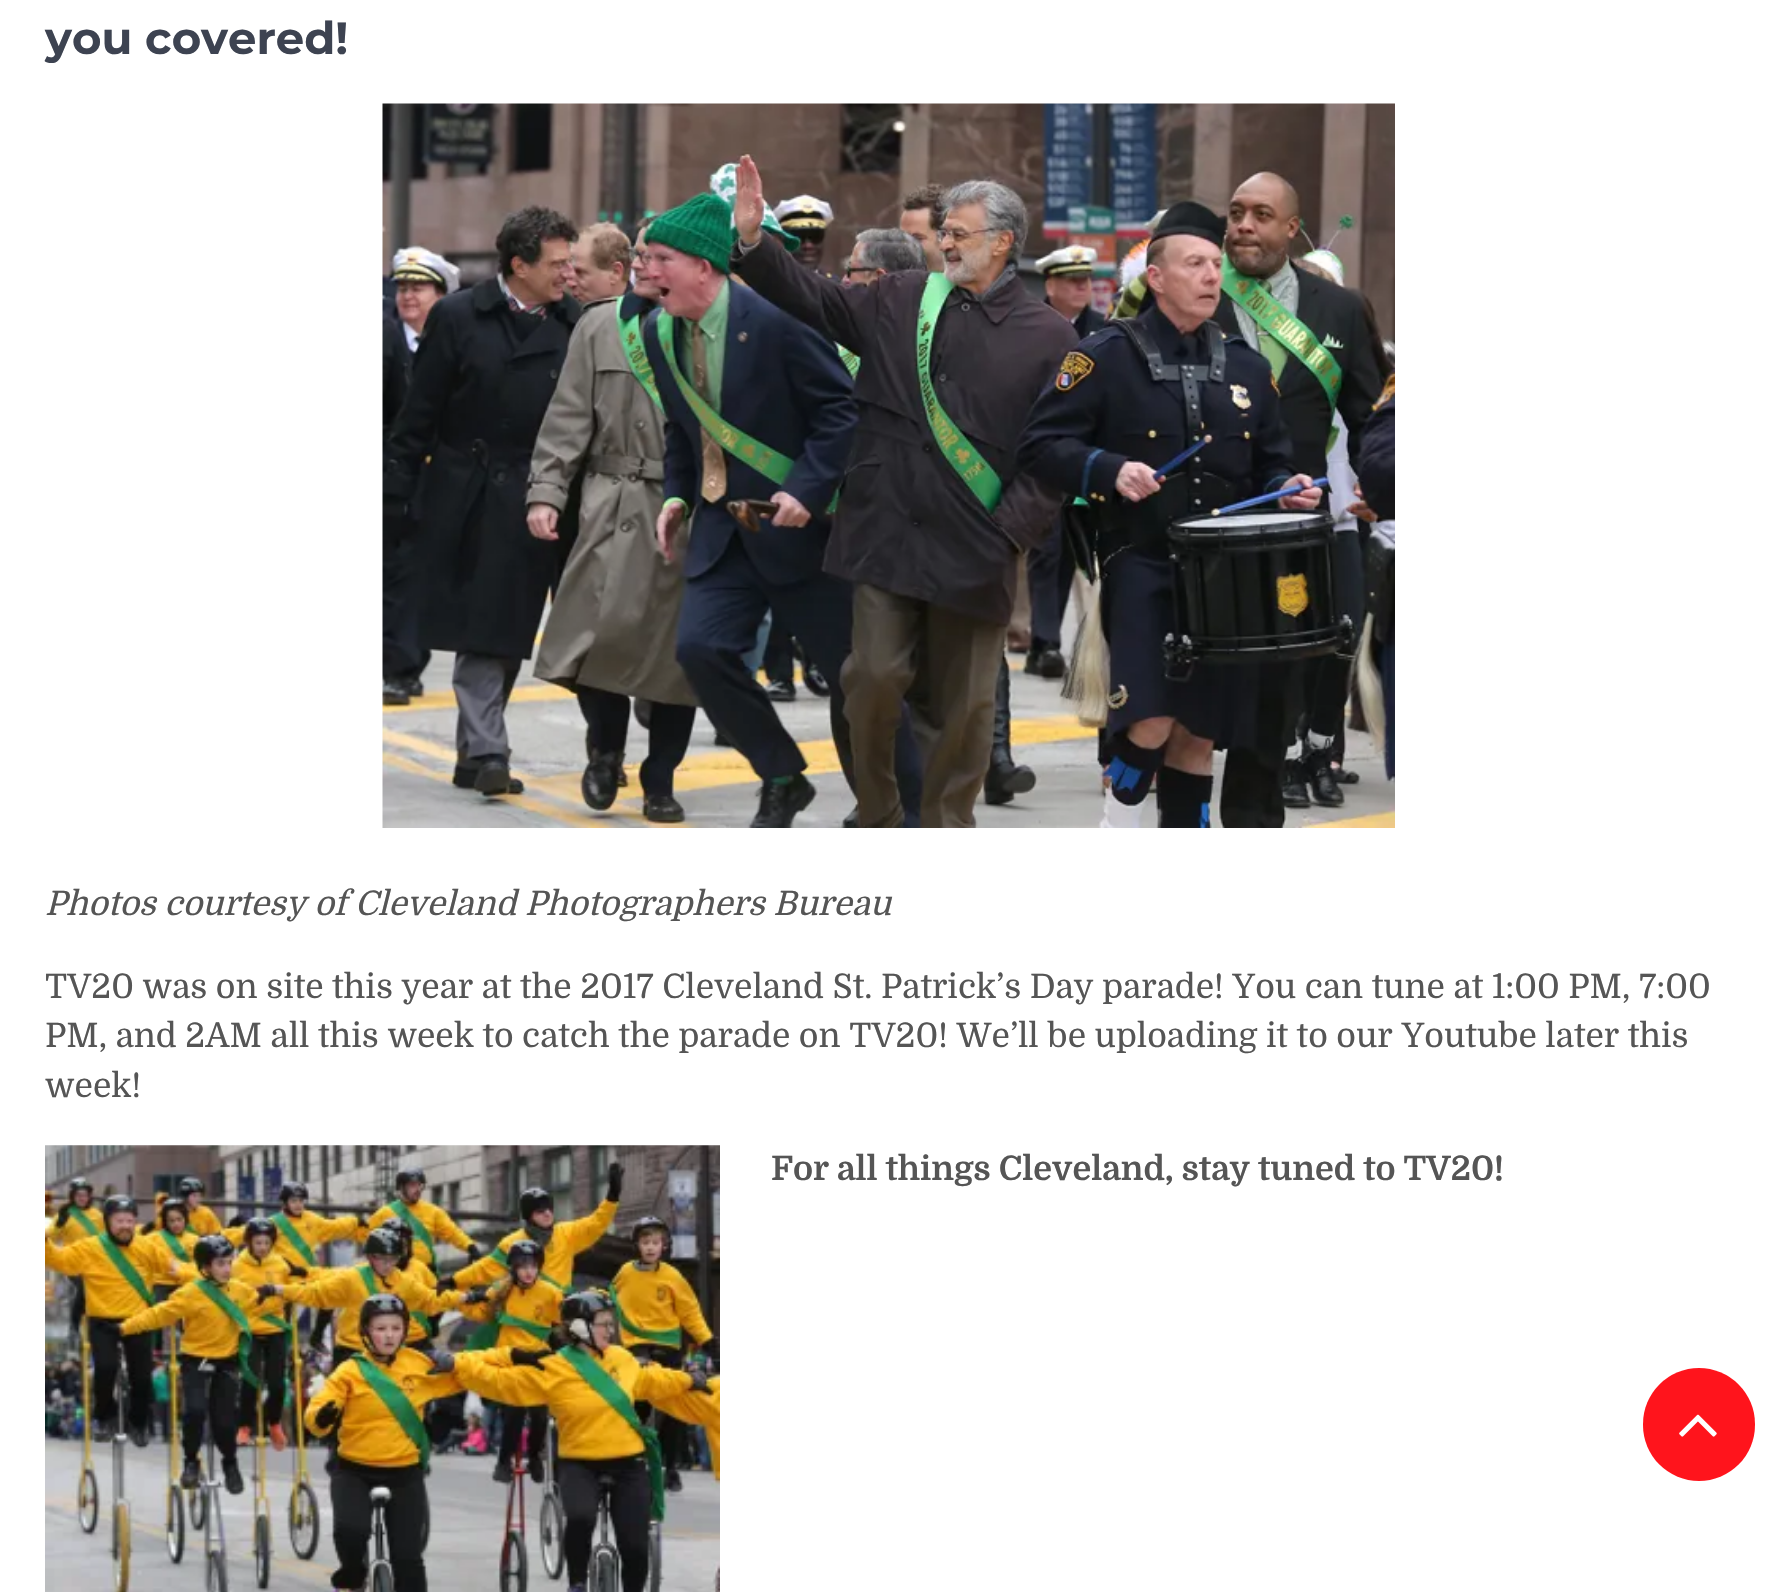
void draw(SkCanvas* canvas) {
    SkPaint paint;
    paint.setAntiAlias(true);
    auto face = [&](const char* family, int weight, float size, bool italic = false) {
        SkFontStyle style(weight, SkFontStyle::kNormal_Width,
            italic ? SkFontStyle::kItalic_Slant : SkFontStyle::kUpright_Slant);
        SkFont result(fontMgr->matchFamilyStyle(family, style), size);
        result.setSubpixel(true);
        return result;
    };
    auto write = [&](const char* s, float x, float y, const SkFont& font, SkColor color) {
        SkPaint ink(SkColor4f::FromColor(color));
        ink.setAntiAlias(true);
        canvas->drawString(s, x, y, font, ink);
    };
    auto card = [&](float x, float y, float w, float h, float radius, SkColor color) {
        SkPaint ink(SkColor4f::FromColor(color));
        ink.setAntiAlias(true);
        canvas->drawRoundRect(SkRect::MakeXYWH(x, y, w, h), radius, radius, ink);
    };
    auto paste = [&](const char* path, float x, float y, float w, float h) {
        auto image = SkImages::DeferredFromEncodedData(SkData::MakeFromFileName(path));
        canvas->drawImageRect(image, SkRect::MakeXYWH(x, y, w, h), SkSamplingOptions());
    };
    canvas->clear(SK_ColorWHITE);
    auto kFont1 = face("Montserrat", 700, 45);
    write("you covered!", 45, 54, kFont1, SkColorSetRGB(61, 67, 81));
    paste("pic1.png", 382, 103, 1013, 725);
    auto kFont2 = face("Domine", 400, 33.75f, true);
    write("Photos courtesy of Cleveland Photographers Bureau", 45, 915, kFont2, SkColorSetRGB(85, 85, 85));
    auto kFont3 = face("Domine", 400, 33.75f);
    write("TV20 was on site this year at the 2017 Cleveland St. Patrick’s Day parade! You can tune at 1:00 PM, 7:00", 45, 998, kFont3, SkColorSetRGB(85, 85, 85));
    write("PM, and 2AM all this week to catch the parade on TV20! We’ll be uploading it to our Youtube later this", 45, 1047, kFont3, SkColorSetRGB(85, 85, 85));
    write("week!", 45, 1097, kFont3, SkColorSetRGB(85, 85, 85));
    paste("pic2.png", 45, 1145, 675, 447);
    auto kFont4 = face("Domine", 700, 33.75f);
    write("For all things Cleveland, stay tuned to TV20!", 771, 1180, kFont4, SkColorSetRGB(85, 85, 85));
    card(1643, 1368, 112, 113, 56, SkColorSetRGB(255, 20, 28));
    paste("pic3.png", 1679, 1414, 38, 23);
}
